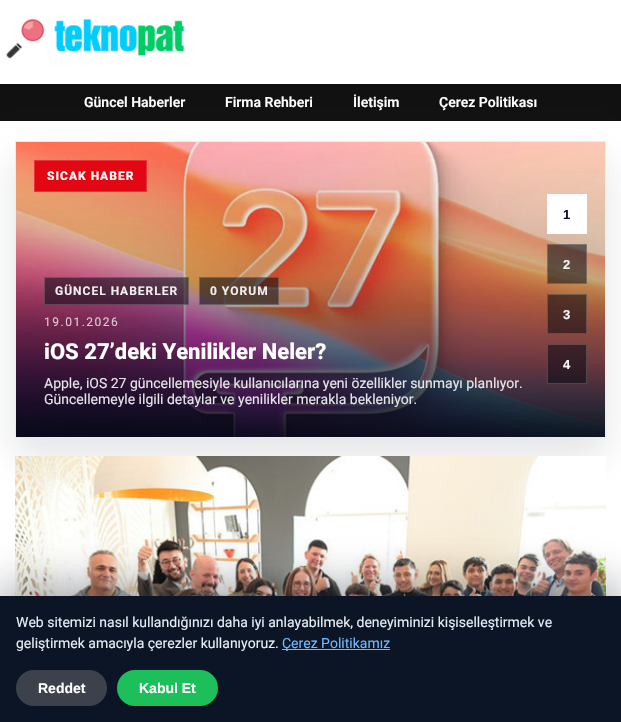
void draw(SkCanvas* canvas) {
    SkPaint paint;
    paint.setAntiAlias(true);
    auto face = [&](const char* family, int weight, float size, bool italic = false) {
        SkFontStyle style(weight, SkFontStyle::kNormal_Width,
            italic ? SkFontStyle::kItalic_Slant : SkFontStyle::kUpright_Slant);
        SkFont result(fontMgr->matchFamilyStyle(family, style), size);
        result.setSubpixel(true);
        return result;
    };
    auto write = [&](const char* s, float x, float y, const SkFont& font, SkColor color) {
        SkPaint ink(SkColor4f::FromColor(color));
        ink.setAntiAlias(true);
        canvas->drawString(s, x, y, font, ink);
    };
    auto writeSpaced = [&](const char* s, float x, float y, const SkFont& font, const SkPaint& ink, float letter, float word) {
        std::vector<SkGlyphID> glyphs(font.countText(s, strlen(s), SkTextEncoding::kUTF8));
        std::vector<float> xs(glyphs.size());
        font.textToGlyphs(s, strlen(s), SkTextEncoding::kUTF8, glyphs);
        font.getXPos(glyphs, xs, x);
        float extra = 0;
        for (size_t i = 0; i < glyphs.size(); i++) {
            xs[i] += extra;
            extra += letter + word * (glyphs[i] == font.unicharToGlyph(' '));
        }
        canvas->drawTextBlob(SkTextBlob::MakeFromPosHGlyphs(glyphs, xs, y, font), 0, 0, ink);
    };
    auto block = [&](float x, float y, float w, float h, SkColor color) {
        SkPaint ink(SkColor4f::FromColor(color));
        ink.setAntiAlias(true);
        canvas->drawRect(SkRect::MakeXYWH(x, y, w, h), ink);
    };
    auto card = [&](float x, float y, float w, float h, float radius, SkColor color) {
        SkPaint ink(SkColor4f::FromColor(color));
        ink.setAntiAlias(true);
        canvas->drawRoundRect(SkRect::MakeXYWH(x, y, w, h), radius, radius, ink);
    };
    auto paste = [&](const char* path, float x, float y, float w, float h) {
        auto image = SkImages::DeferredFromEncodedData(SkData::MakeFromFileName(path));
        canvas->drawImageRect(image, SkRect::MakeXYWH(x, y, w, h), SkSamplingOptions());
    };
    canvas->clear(SK_ColorWHITE);
    paste("pic1.png", 6, 18, 179, 41);
    block(0, 84, 621, 37, SkColorSetRGB(17, 17, 17));
    auto kFont1 = face("Roboto", 600, 14);
    write("Güncel Haberler", 84, 107, kFont1, SK_ColorWHITE);
    write("Firma Rehberi", 225, 107, kFont1, SK_ColorWHITE);
    write("İletişim", 353, 107, kFont1, SK_ColorWHITE);
    write("Çerez Politikası", 439, 107, kFont1, SK_ColorWHITE);
    paint.setColor(SkColorSetARGB(31, 16, 24, 40));
    paint.setMaskFilter(SkMaskFilter::MakeBlur(kNormal_SkBlurStyle, 17.5f));
    canvas->drawRect(SkRect::MakeXYWH(15, 159, 591, 297), paint);
    paint.setMaskFilter(nullptr);
    paint.setStyle(SkPaint::kStroke_Style);
    paint.setStrokeWidth(1);
    paint.setColor(SkColorSetRGB(236, 236, 238));
    canvas->drawRect(SkRect::MakeXYWH(15.5f, 141.5f, 590, 296), paint);
    paste("pic2.png", 16, 142, 589, 295);
    paint.setStyle(SkPaint::kFill_Style);
    paint.setColor(SkColorSetRGB(227, 6, 19));
    canvas->drawRect(SkRect::MakeXYWH(34.5f, 160.5f, 112, 31), paint);
    paint.setStyle(SkPaint::kStroke_Style);
    paint.setColor(SkColorSetRGB(232, 51, 61));
    canvas->drawRect(SkRect::MakeXYWH(34.5f, 160.5f, 112, 31), paint);
    auto kFont2 = face("Roboto", 800, 12);
    paint.setStyle(SkPaint::kFill_Style);
    paint.setColor(SK_ColorWHITE);
    writeSpaced("SICAK HABER", 47, 180, kFont2, paint, 1, 0);
    block(44, 277, 145, 28, SkColorSetARGB(140, 5, 7, 16));
    paint.setStyle(SkPaint::kStroke_Style);
    paint.setColor(SkColorSetARGB(46, 255, 255, 255));
    canvas->drawRect(SkRect::MakeXYWH(44.5f, 277.5f, 144, 27), paint);
    auto kFont3 = face("Roboto", 700, 12);
    paint.setStyle(SkPaint::kFill_Style);
    paint.setColor(SkColorSetRGB(241, 238, 240));
    writeSpaced("GÜNCEL HABERLER", 55, 295, kFont3, paint, 1, 0);
    block(199, 277, 80, 28, SkColorSetARGB(140, 5, 7, 16));
    paint.setStyle(SkPaint::kStroke_Style);
    paint.setColor(SkColorSetARGB(46, 255, 255, 255));
    canvas->drawRect(SkRect::MakeXYWH(199.5f, 277.5f, 79, 27), paint);
    paint.setStyle(SkPaint::kFill_Style);
    paint.setColor(SkColorSetRGB(241, 238, 240));
    writeSpaced("0 YORUM", 210, 295, kFont3, paint, 1, 0);
    auto kFont4 = face("Roboto", 400, 12);
    paint.setColor(SkColorSetRGB(221, 201, 212));
    writeSpaced("19.01.2026", 44, 326, kFont4, paint, 1.5f, 0);
    auto kFont5 = face("Roboto", 800, 22);
    write("iOS 27’deki Yenilikler Neler?", 44, 359, kFont5, SK_ColorWHITE);
    auto kFont6 = face("Roboto", 400, 14);
    write("Apple, iOS 27 güncellemesiyle kullanıcılarına yeni özellikler sunmayı planlıyor.", 44, 388, kFont6, SkColorSetRGB(230, 229, 232));
    write("Güncellemeyle ilgili detaylar ve yenilikler merakla bekleniyor.", 44, 404, kFont6, SkColorSetRGB(230, 229, 232));
    block(547, 194, 40, 40, SK_ColorWHITE);
    auto kFont7 = face("Liberation Sans", 700, 13);
    write("1", 563, 219, kFont7, SkColorSetRGB(11, 17, 32));
    block(547, 244, 40, 40, SkColorSetARGB(140, 5, 7, 16));
    paint.setStyle(SkPaint::kStroke_Style);
    paint.setColor(SkColorSetARGB(46, 255, 255, 255));
    canvas->drawRect(SkRect::MakeXYWH(547.5f, 244.5f, 39, 39), paint);
    write("2", 563, 269, kFont7, SkColorSetRGB(247, 246, 245));
    block(547, 294, 40, 40, SkColorSetARGB(140, 5, 7, 16));
    canvas->drawRect(SkRect::MakeXYWH(547.5f, 294.5f, 39, 39), paint);
    write("3", 563, 319, kFont7, SkColorSetRGB(247, 246, 245));
    block(547, 344, 40, 40, SkColorSetARGB(140, 5, 7, 16));
    canvas->drawRect(SkRect::MakeXYWH(547.5f, 344.5f, 39, 39), paint);
    write("4", 563, 369, kFont7, SkColorSetRGB(247, 246, 245));
    paste("pic3.png", 15, 456, 591, 140);
    paint.setStyle(SkPaint::kFill_Style);
    paint.setColor(SkColorSetARGB(89, 12, 21, 34));
    paint.setMaskFilter(SkMaskFilter::MakeBlur(kNormal_SkBlurStyle, 20));
    canvas->drawRect(SkRect::MakeXYWH(0, 584, 621, 126), paint);
    paint.setMaskFilter(nullptr);
    block(0, 596, 621, 126, SkColorSetRGB(11, 21, 38));
    write("Web sitemizi nasıl kullandığınızı daha iyi anlayabilmek, deneyiminizi kişiselleştirmek ve", 16, 627, kFont6, SkColorSetRGB(231, 236, 246));
    write("geliştirmek amacıyla çerezler kullanıyoruz.", 16, 648, kFont6, SkColorSetRGB(231, 236, 246));
    block(282, 649, 108, 1, SkColorSetRGB(111, 185, 255));
    write("Çerez Politikamız", 282, 648, kFont6, SkColorSetRGB(111, 185, 255));
    card(16, 670, 91, 36, 18, SkColorSetRGB(60, 65, 75));
    auto kFont8 = face("Liberation Sans", 700, 14);
    write("Reddet", 38, 693, kFont8, SK_ColorWHITE);
    card(117, 670, 101, 36, 18, SkColorSetRGB(29, 191, 91));
    write("Kabul Et", 139, 693, kFont8, SK_ColorWHITE);
}
